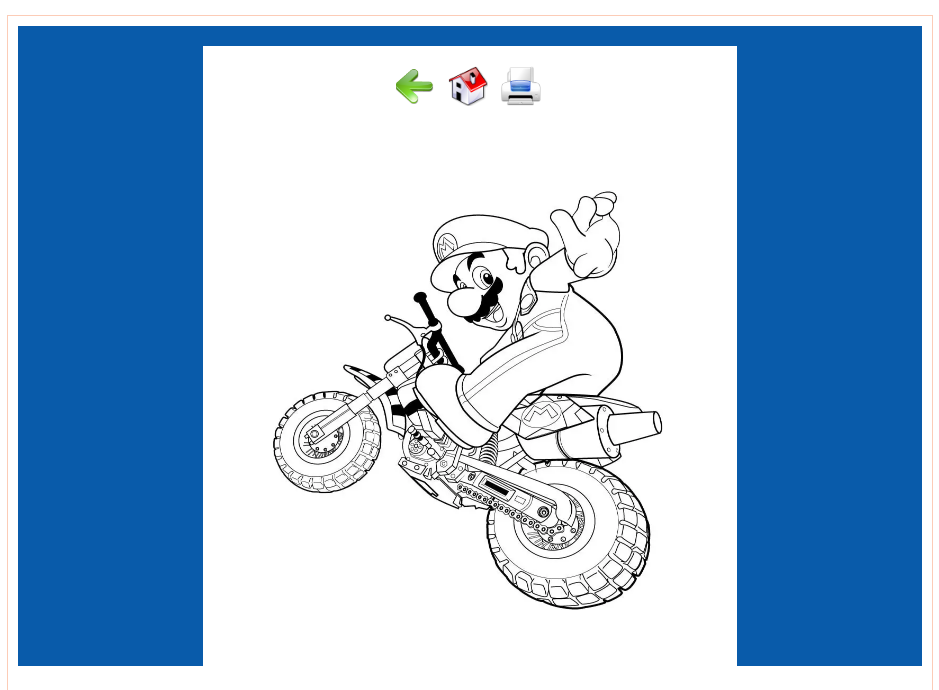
void draw(SkCanvas* canvas) {
    SkPaint paint;
    paint.setAntiAlias(true);
    auto block = [&](float x, float y, float w, float h, SkColor color) {
        SkPaint ink(SkColor4f::FromColor(color));
        ink.setAntiAlias(true);
        canvas->drawRect(SkRect::MakeXYWH(x, y, w, h), ink);
    };
    auto paste = [&](const char* path, float x, float y, float w, float h) {
        auto image = SkImages::DeferredFromEncodedData(SkData::MakeFromFileName(path));
        canvas->drawImageRect(image, SkRect::MakeXYWH(x, y, w, h), SkSamplingOptions());
    };
    canvas->clear(SK_ColorWHITE);
    paint.setStyle(SkPaint::kStroke_Style);
    paint.setStrokeWidth(1);
    paint.setColor(SkColorSetRGB(252, 204, 183));
    canvas->drawRect(SkRect::MakeXYWH(7.5f, 15.5f, 925, 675), paint);
    block(18, 26, 904, 20, SkColorSetRGB(9, 91, 170));
    block(18, 46, 185, 620, SkColorSetRGB(9, 91, 170));
    paste("pic1.png", 396, 69, 38, 35);
    paste("pic2.png", 448, 66, 40, 40);
    paste("pic3.png", 501, 66, 40, 40);
    paste("pic4.png", 273, 190, 390, 420);
    block(737, 46, 185, 620, SkColorSetRGB(9, 91, 170));
}
